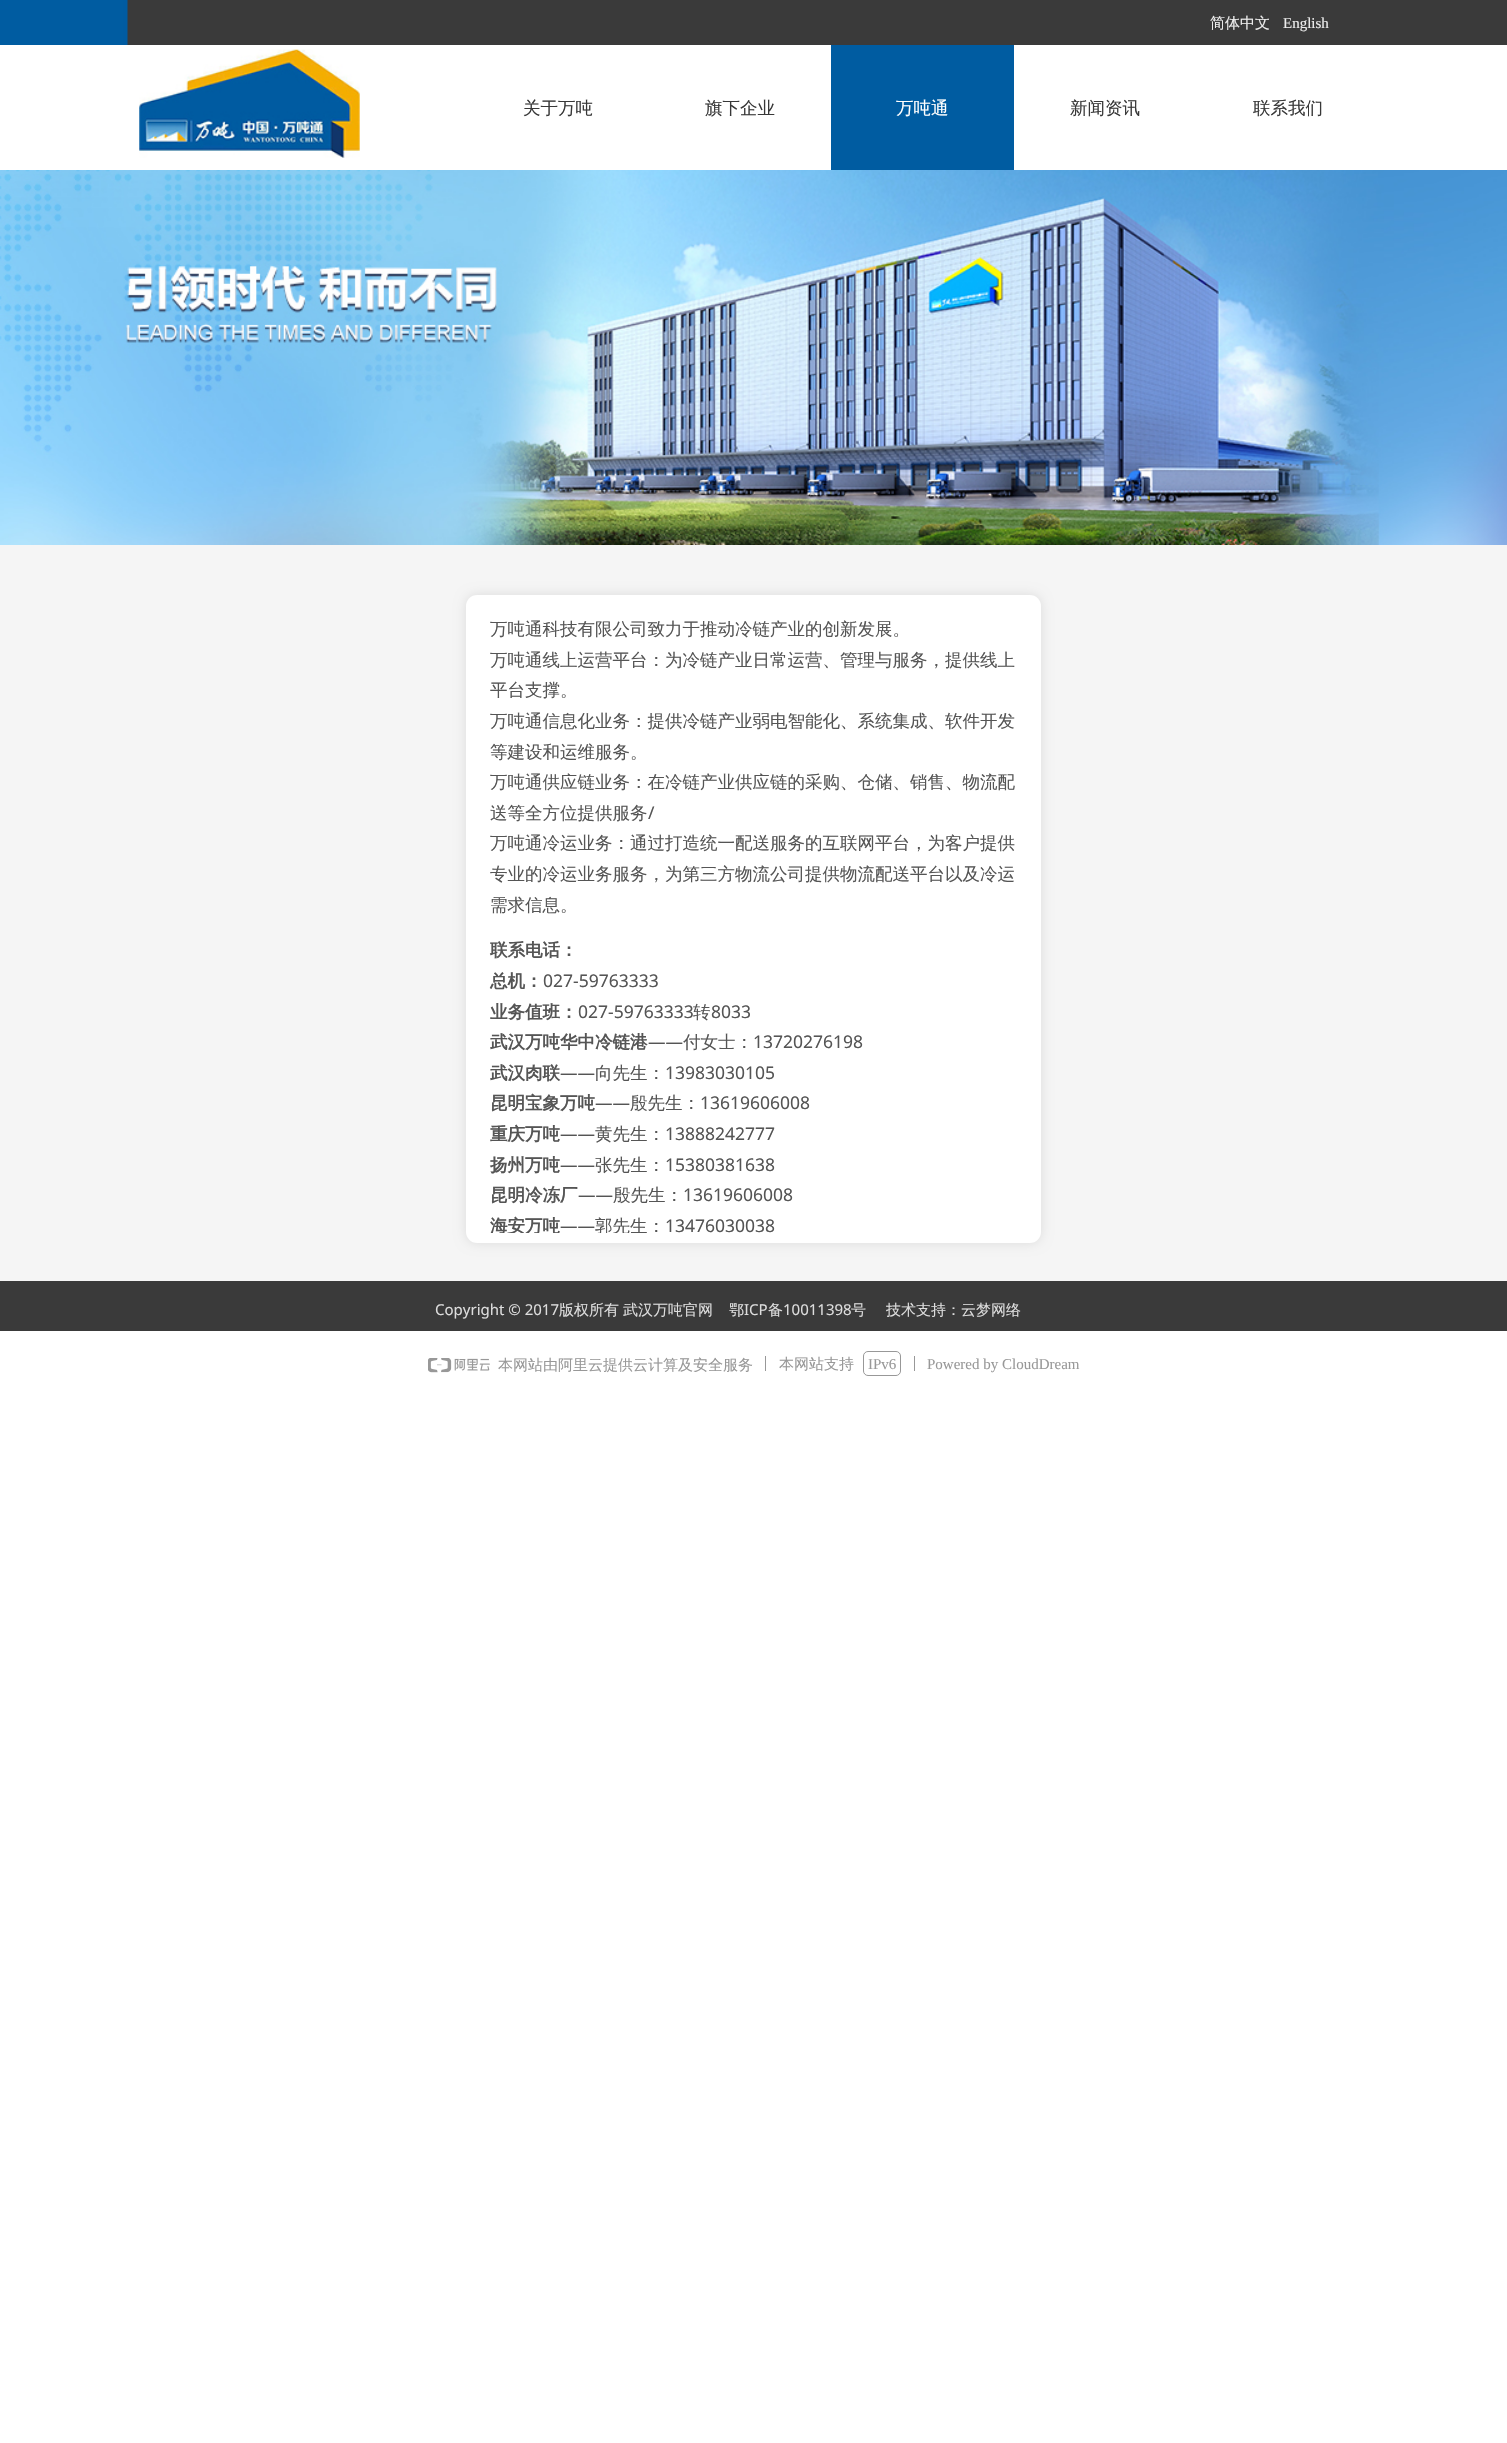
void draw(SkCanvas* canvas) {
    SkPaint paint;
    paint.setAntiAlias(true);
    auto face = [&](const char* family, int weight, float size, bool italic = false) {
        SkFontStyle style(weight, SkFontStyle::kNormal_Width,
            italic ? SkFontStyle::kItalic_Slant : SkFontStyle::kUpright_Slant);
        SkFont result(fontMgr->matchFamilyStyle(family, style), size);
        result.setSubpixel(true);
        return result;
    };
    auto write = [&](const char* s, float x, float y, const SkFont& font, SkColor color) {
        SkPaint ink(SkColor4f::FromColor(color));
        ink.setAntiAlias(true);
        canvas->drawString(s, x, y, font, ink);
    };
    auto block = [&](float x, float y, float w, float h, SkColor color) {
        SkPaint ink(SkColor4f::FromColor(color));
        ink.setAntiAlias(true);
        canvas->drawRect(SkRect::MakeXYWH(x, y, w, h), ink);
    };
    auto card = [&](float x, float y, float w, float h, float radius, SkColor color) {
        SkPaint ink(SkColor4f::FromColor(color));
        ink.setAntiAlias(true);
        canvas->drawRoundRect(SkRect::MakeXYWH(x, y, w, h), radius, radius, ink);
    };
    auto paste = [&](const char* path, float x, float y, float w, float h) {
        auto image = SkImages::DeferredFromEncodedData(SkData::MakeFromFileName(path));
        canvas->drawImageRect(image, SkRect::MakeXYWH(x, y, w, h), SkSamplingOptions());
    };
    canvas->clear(SK_ColorWHITE);
    paste("pic1.png", 0, 0, 1507, 45);
    auto kFont1 = face("WenQuanYi Zen Hei", 500, 15);
    write("简体中文", 1210, 28, kFont1, SkColorSetRGB(238, 238, 238));
    auto kFont2 = face("Liberation Serif", 400, 15);
    write("English", 1283, 28, kFont2, SkColorSetRGB(238, 238, 238));
    paste("pic2.png", 139, 49, 221, 109);
    auto kFont3 = face("WenQuanYi Zen Hei", 500, 17.5f);
    write("关于万吨", 523, 114, kFont3, SkColorSetRGB(56, 56, 56));
    write("旗下企业", 705, 114, kFont3, SkColorSetRGB(56, 56, 56));
    block(831, 45, 183, 125, SkColorSetRGB(0, 92, 161));
    write("万吨通", 896, 114, kFont3, SK_ColorWHITE);
    write("新闻资讯", 1070, 114, kFont3, SkColorSetRGB(56, 56, 56));
    write("联系我们", 1253, 114, kFont3, SkColorSetRGB(56, 56, 56));
    block(0, 545, 1507, 736, SkColorSetRGB(245, 245, 245));
    paste("pic3.png", 0, 170, 1507, 375);
    paint.setColor(SkColorSetARGB(26, 0, 0, 0));
    paint.setMaskFilter(SkMaskFilter::MakeBlur(kNormal_SkBlurStyle, 6));
    canvas->drawRoundRect(SkRect::MakeXYWH(466, 595, 575, 648), 11, 11, paint);
    paint.setMaskFilter(nullptr);
    card(466, 595, 575, 648, 11, SK_ColorWHITE);
    write("万吨通科技有限公司致力于推动冷链产业的创新发展。", 490, 635, kFont3, SkColorSetRGB(85, 85, 85));
    write("万吨通线上运营平台：为冷链产业日常运营、管理与服务，提供线上", 490, 666, kFont3, SkColorSetRGB(85, 85, 85));
    write("平台支撑。", 490, 696, kFont3, SkColorSetRGB(85, 85, 85));
    write("万吨通信息化业务：提供冷链产业弱电智能化、系统集成、软件开发", 490, 727, kFont3, SkColorSetRGB(85, 85, 85));
    write("等建设和运维服务。", 490, 758, kFont3, SkColorSetRGB(85, 85, 85));
    write("万吨通供应链业务：在冷链产业供应链的采购、仓储、销售、物流配", 490, 788, kFont3, SkColorSetRGB(85, 85, 85));
    write("送等全方位提供服务", 490, 819, kFont3, SkColorSetRGB(85, 85, 85));
    auto kFont4 = face("Noto Sans", 400, 17.5f);
    write("/", 648, 819, kFont4, SkColorSetRGB(85, 85, 85));
    write("万吨通冷运业务：通过打造统一配送服务的互联网平台，为客户提供", 490, 849, kFont3, SkColorSetRGB(85, 85, 85));
    write("专业的冷运业务服务，为第三方物流公司提供物流配送平台以及冷运", 490, 880, kFont3, SkColorSetRGB(85, 85, 85));
    write("需求信息。", 490, 911, kFont3, SkColorSetRGB(85, 85, 85));
    auto kFont5 = face("WenQuanYi Zen Hei", 700, 17.5f);
    write("联系电话：", 490, 956, kFont5, SkColorSetRGB(85, 85, 85));
    write("总机：", 490, 987, kFont5, SkColorSetRGB(85, 85, 85));
    write("027-59763333", 543, 987, kFont4, SkColorSetRGB(85, 85, 85));
    write("业务值班：", 490, 1018, kFont5, SkColorSetRGB(85, 85, 85));
    write("027-59763333", 578, 1018, kFont4, SkColorSetRGB(85, 85, 85));
    write("转", 693, 1018, kFont3, SkColorSetRGB(85, 85, 85));
    write("8033", 711, 1018, kFont4, SkColorSetRGB(85, 85, 85));
    write("武汉万吨华中冷链港", 490, 1048, kFont5, SkColorSetRGB(85, 85, 85));
    write("——", 648, 1048, kFont4, SkColorSetRGB(85, 85, 85));
    write("付女士：", 683, 1048, kFont3, SkColorSetRGB(85, 85, 85));
    write("13720276198", 753, 1048, kFont4, SkColorSetRGB(85, 85, 85));
    write("武汉肉联", 490, 1079, kFont5, SkColorSetRGB(85, 85, 85));
    write("——", 560, 1079, kFont4, SkColorSetRGB(85, 85, 85));
    write("向先生：", 595, 1079, kFont3, SkColorSetRGB(85, 85, 85));
    write("13983030105", 665, 1079, kFont4, SkColorSetRGB(85, 85, 85));
    write("昆明宝象万吨", 490, 1109, kFont5, SkColorSetRGB(85, 85, 85));
    write("——", 595, 1109, kFont4, SkColorSetRGB(85, 85, 85));
    write("殷先生：", 630, 1109, kFont3, SkColorSetRGB(85, 85, 85));
    write("13619606008", 700, 1109, kFont4, SkColorSetRGB(85, 85, 85));
    write("重庆万吨", 490, 1140, kFont5, SkColorSetRGB(85, 85, 85));
    write("——", 560, 1140, kFont4, SkColorSetRGB(85, 85, 85));
    write("黄先生：", 595, 1140, kFont3, SkColorSetRGB(85, 85, 85));
    write("13888242777", 665, 1140, kFont4, SkColorSetRGB(85, 85, 85));
    write("扬州万吨", 490, 1171, kFont5, SkColorSetRGB(85, 85, 85));
    write("——", 560, 1171, kFont4, SkColorSetRGB(85, 85, 85));
    write("张先生：", 595, 1171, kFont3, SkColorSetRGB(85, 85, 85));
    write("15380381638", 665, 1171, kFont4, SkColorSetRGB(85, 85, 85));
    write("昆明冷冻厂", 490, 1201, kFont5, SkColorSetRGB(85, 85, 85));
    write("——", 578, 1201, kFont4, SkColorSetRGB(85, 85, 85));
    write("殷先生：", 613, 1201, kFont3, SkColorSetRGB(85, 85, 85));
    write("13619606008", 683, 1201, kFont4, SkColorSetRGB(85, 85, 85));
    canvas->save();
    canvas->clipRect(SkRect::MakeXYWH(490, 614, 538, 619));
    write("海安万吨", 490, 1232, kFont5, SkColorSetRGB(85, 85, 85));
    canvas->restore();
    write("——", 560, 1232, kFont4, SkColorSetRGB(85, 85, 85));
    canvas->save();
    canvas->clipRect(SkRect::MakeXYWH(490, 614, 538, 619));
    write("郭先生：", 595, 1232, kFont3, SkColorSetRGB(85, 85, 85));
    canvas->restore();
    write("13476030038", 665, 1232, kFont4, SkColorSetRGB(85, 85, 85));
    block(0, 1281, 1507, 50, SkColorSetRGB(58, 58, 58));
    auto kFont6 = face("Noto Sans", 400, 15);
    write("Copyright © 2017", 435, 1315, kFont6, SkColorSetRGB(221, 221, 221));
    write("版权所有", 559, 1315, kFont1, SkColorSetRGB(221, 221, 221));
    write("武汉万吨官网", 623, 1315, kFont1, SkColorSetRGB(221, 221, 221));
    write("鄂", 729, 1315, kFont1, SkColorSetRGB(221, 221, 221));
    write("ICP", 744, 1315, kFont6, SkColorSetRGB(221, 221, 221));
    write("备", 768, 1315, kFont1, SkColorSetRGB(221, 221, 221));
    write("10011398", 783, 1315, kFont6, SkColorSetRGB(221, 221, 221));
    write("号", 851, 1315, kFont1, SkColorSetRGB(221, 221, 221));
    write("技术支持：云梦网络", 886, 1315, kFont1, SkColorSetRGB(221, 221, 221));
    paste("pic4.png", 428, 1358, 62, 15);
    write("本网站由阿里云提供云计算及安全服务", 498, 1370, kFont1, SkColorSetRGB(152, 152, 152));
    block(765, 1356, 1, 15, SkColorSetRGB(152, 152, 152));
    write("本网站支持", 779, 1369, kFont1, SkColorSetRGB(152, 152, 152));
    paint.setStyle(SkPaint::kStroke_Style);
    paint.setStrokeWidth(1);
    paint.setColor(SkColorSetRGB(152, 152, 152));
    canvas->drawRoundRect(SkRect::MakeXYWH(863.5f, 1351.5f, 37, 24), 4.5f, 4.5f, paint);
    write("IPv6", 868, 1369, kFont2, SkColorSetRGB(152, 152, 152));
    block(914, 1356, 1, 15, SkColorSetRGB(152, 152, 152));
    write("Powered by CloudDream", 927, 1369, kFont2, SkColorSetRGB(152, 152, 152));
}
